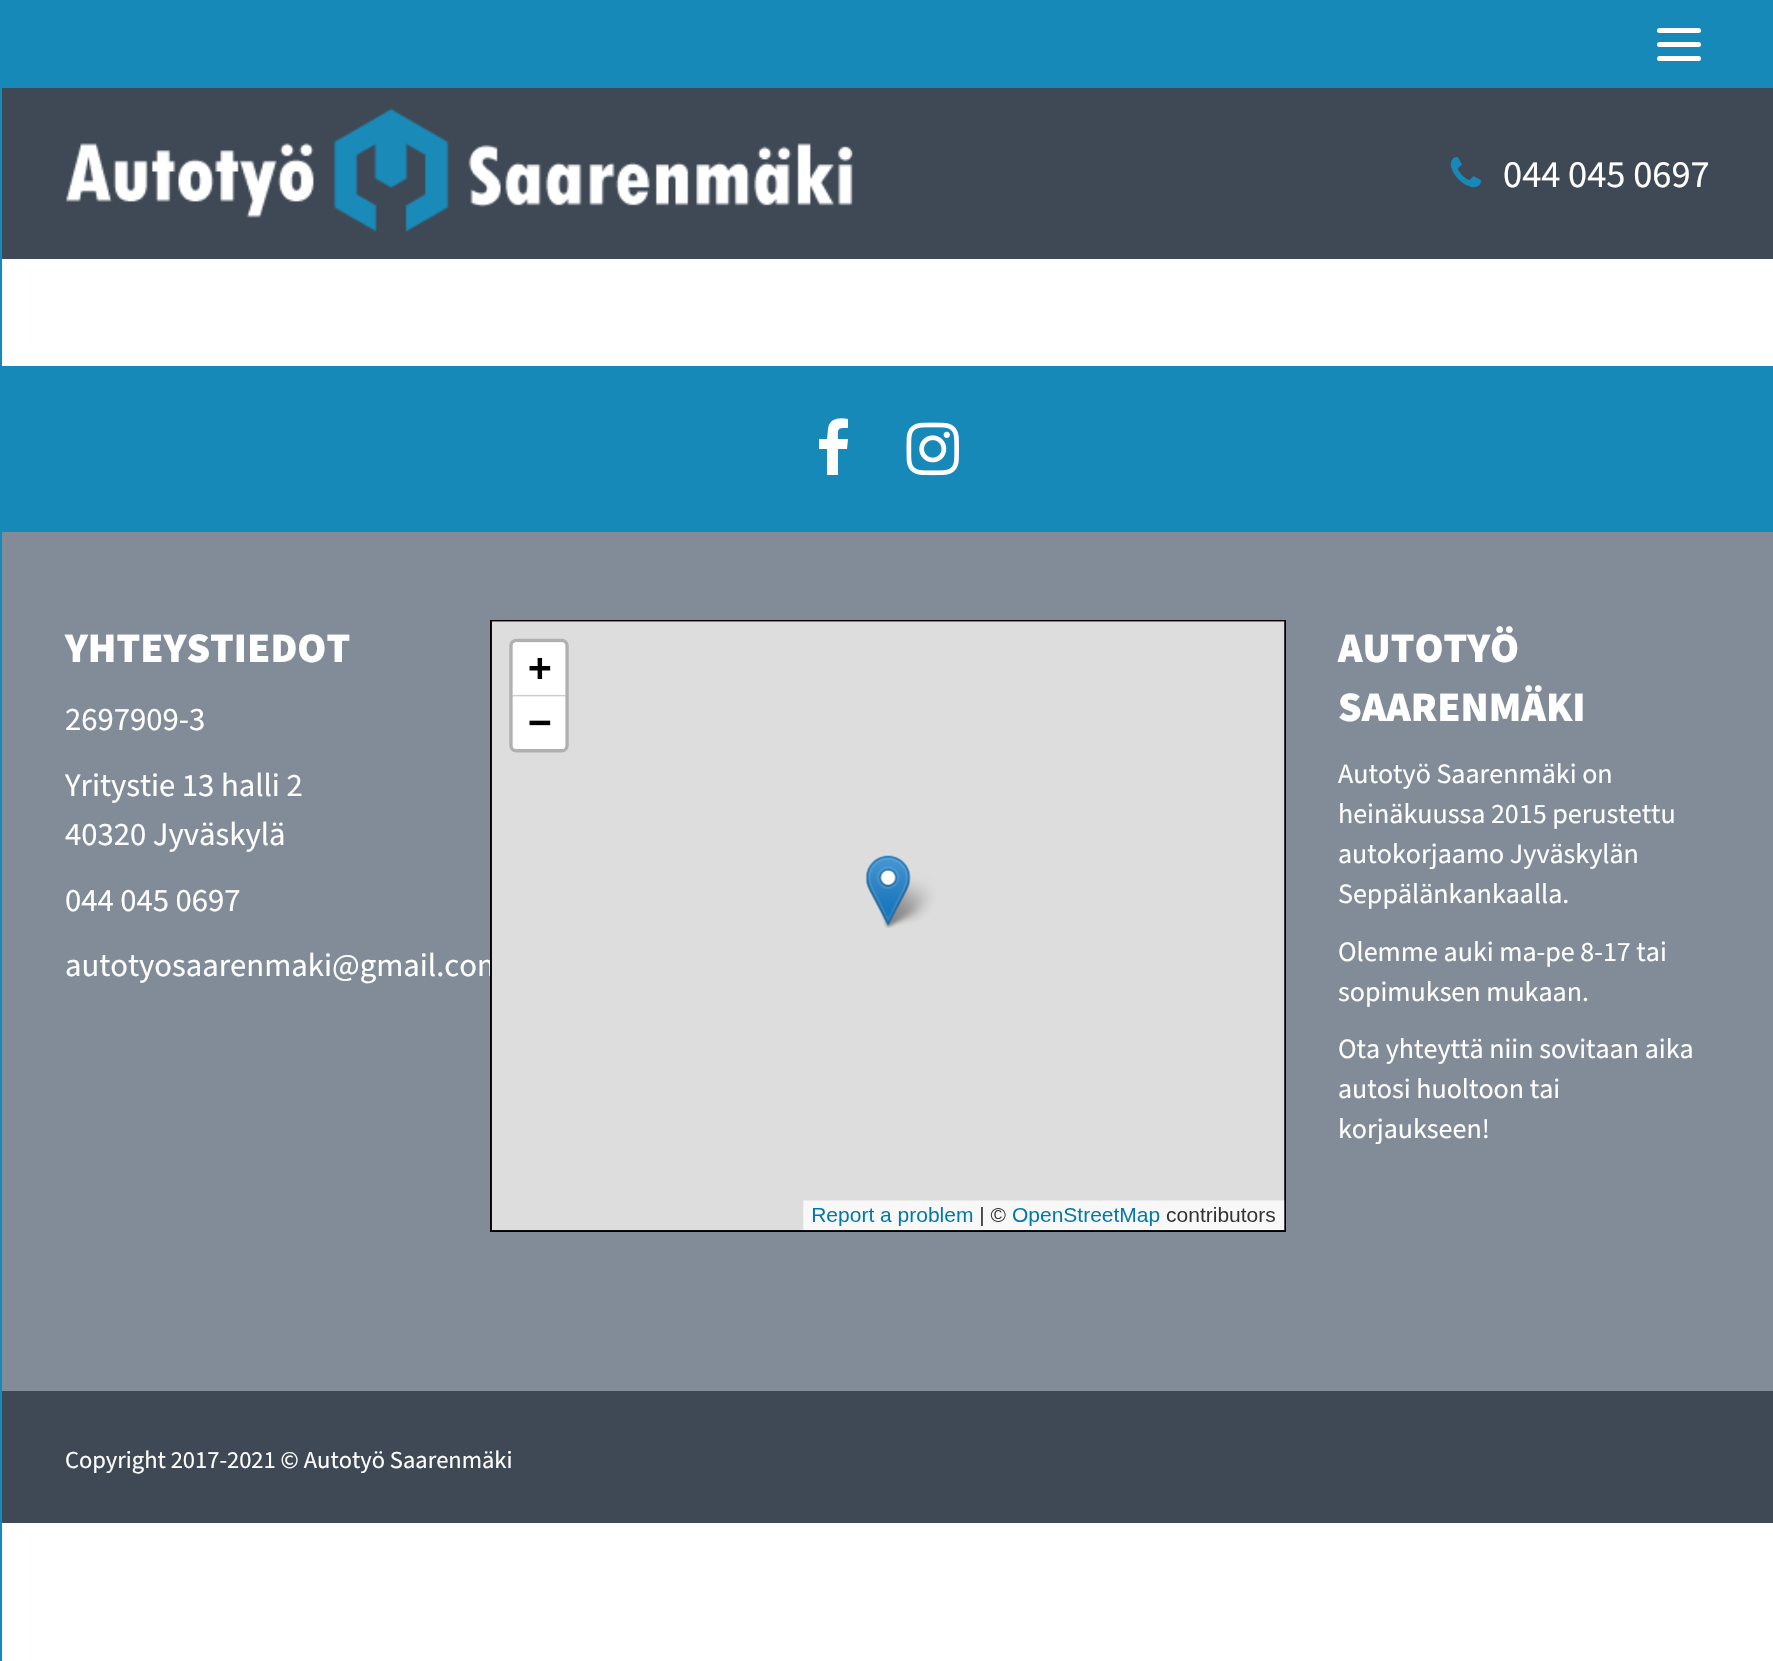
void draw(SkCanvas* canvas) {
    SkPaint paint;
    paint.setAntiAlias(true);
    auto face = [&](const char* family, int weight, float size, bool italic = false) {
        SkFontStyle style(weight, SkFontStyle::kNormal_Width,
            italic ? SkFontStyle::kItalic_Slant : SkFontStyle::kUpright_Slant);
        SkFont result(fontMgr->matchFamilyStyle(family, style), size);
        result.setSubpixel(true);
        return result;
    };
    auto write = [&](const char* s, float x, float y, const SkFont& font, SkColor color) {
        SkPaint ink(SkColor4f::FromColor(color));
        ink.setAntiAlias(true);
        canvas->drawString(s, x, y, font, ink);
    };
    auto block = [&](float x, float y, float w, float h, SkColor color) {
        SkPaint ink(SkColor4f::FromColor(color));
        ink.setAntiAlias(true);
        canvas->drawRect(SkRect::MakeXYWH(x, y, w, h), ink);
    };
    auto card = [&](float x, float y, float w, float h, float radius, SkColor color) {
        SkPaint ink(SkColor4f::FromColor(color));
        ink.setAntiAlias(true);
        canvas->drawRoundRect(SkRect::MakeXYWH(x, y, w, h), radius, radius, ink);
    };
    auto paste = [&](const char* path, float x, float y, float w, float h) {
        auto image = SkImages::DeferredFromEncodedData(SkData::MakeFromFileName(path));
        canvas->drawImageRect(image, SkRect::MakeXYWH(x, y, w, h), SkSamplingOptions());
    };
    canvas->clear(SK_ColorWHITE);
    block(0, 0, 2, 1661, SkColorSetRGB(22, 137, 185));
    block(2, 0, 1771, 88, SkColorSetRGB(22, 137, 185));
    card(1657, 42, 44, 5, 2.5f, SK_ColorWHITE);
    card(1657, 28, 44, 5, 2.5f, SK_ColorWHITE);
    card(1657, 56, 44, 5, 2.5f, SK_ColorWHITE);
    block(2, 88, 1771, 171, SkColorSetRGB(63, 73, 85));
    paste("pic1.png", 66, 108, 787, 124);
    paste("pic2.png", 1450, 157, 31, 31);
    auto kFont1 = face("Mada", 400, 38.5f);
    write("044 045 0697", 1503, 187, kFont1, SK_ColorWHITE);
    block(2, 366, 1771, 166, SkColorSetRGB(22, 137, 185));
    paint.setColor(SK_ColorWHITE);
    canvas->drawPath(SkPathBuilder().moveTo(848, 419).lineTo(848, 428).cubicTo(837, 428, 838, 428, 838, 439).lineTo(848, 439).lineTo(847, 449).lineTo(838, 449).lineTo(838, 475).lineTo(827, 475).lineTo(827, 449).lineTo(819, 449).lineTo(819, 439).lineTo(827, 439).lineTo(828, 429).cubicTo(829, 418, 840, 417, 848, 419).close().detach(), paint);
    paste("pic3.png", 906, 422, 53, 54);
    block(2, 532, 1771, 859, SkColorSetRGB(129, 140, 152));
    auto kFont2 = face("Mada", 900, 42);
    write("YHTEYSTIEDOT", 65, 662, kFont2, SK_ColorWHITE);
    auto kFont3 = face("Mada", 400, 32.7f);
    write("2697909-3", 65, 730, kFont3, SK_ColorWHITE);
    write("Yritystie 13 halli 2", 65, 796, kFont3, SK_ColorWHITE);
    write("40320 Jyväskylä", 65, 845, kFont3, SK_ColorWHITE);
    write("044 045 0697", 65, 911, kFont3, SK_ColorWHITE);
    write("autotyosaarenmaki@gmail.com", 65, 976, kFont3, SK_ColorWHITE);
    paint.setStyle(SkPaint::kStroke_Style);
    paint.setStrokeWidth(2);
    paint.setColor(SK_ColorBLACK);
    canvas->drawRect(SkRect::MakeXYWH(491, 621, 794, 610), paint);
    paste("pic4.png", 491, 621, 794, 610);
    write("AUTOTYÖ", 1338, 662, kFont2, SK_ColorWHITE);
    write("SAARENMÄKI", 1338, 721, kFont2, SK_ColorWHITE);
    auto kFont4 = face("Mada", 400, 28);
    write("Autotyö Saarenmäki on", 1338, 783, kFont4, SK_ColorWHITE);
    write("heinäkuussa 2015 perustettu", 1338, 823, kFont4, SK_ColorWHITE);
    write("autokorjaamo Jyväskylän", 1338, 863, kFont4, SK_ColorWHITE);
    write("Seppälänkankaalla.", 1338, 903, kFont4, SK_ColorWHITE);
    write("Olemme auki ma-pe 8-17 tai", 1338, 961, kFont4, SK_ColorWHITE);
    write("sopimuksen mukaan.", 1338, 1001, kFont4, SK_ColorWHITE);
    write("Ota yhteyttä niin sovitaan aika", 1338, 1058, kFont4, SK_ColorWHITE);
    write("autosi huoltoon tai", 1338, 1098, kFont4, SK_ColorWHITE);
    write("korjaukseen!", 1338, 1138, kFont4, SK_ColorWHITE);
    block(2, 1391, 1771, 132, SkColorSetRGB(63, 73, 85));
    auto kFont5 = face("Mada", 400, 24.5f);
    write("Copyright 2017-2021 © Autotyö Saarenmäki", 65, 1468, kFont5, SK_ColorWHITE);
}
